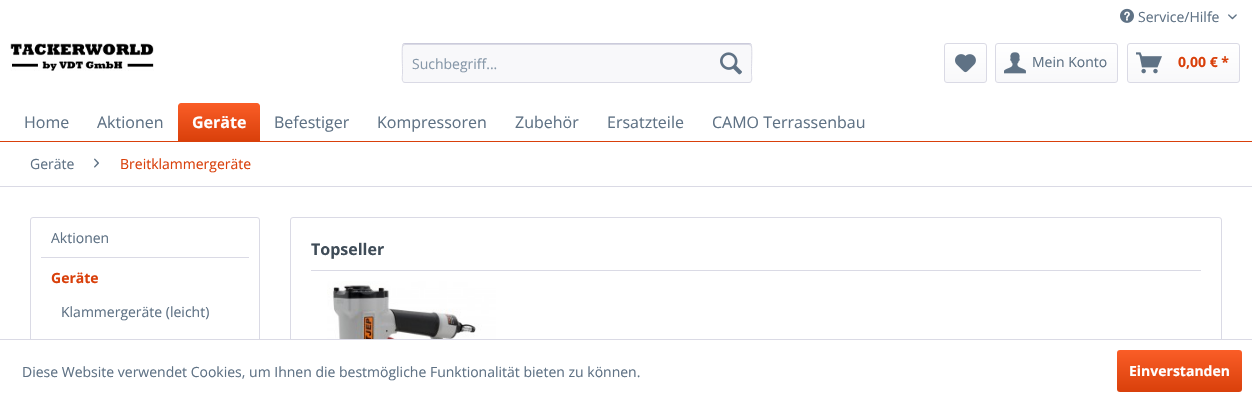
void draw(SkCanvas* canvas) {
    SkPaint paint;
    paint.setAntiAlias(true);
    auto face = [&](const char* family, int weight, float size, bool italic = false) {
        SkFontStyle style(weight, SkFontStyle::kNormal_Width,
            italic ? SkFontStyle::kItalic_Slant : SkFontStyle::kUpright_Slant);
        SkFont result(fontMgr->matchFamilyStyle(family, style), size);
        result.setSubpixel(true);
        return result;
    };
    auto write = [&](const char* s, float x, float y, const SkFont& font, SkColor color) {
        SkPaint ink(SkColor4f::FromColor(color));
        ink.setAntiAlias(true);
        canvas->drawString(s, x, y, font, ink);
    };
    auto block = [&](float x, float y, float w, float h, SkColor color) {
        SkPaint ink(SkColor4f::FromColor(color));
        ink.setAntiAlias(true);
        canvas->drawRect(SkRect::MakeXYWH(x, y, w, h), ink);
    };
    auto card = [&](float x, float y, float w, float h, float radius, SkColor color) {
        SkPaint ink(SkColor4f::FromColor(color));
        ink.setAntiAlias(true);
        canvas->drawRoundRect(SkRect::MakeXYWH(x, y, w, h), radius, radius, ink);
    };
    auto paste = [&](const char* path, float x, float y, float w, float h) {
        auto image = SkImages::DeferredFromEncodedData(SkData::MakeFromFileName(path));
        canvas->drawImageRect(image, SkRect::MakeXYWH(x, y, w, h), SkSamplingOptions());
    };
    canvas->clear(SK_ColorWHITE);
    paste("pic1.png", 1120, 8, 14, 15);
    auto kFont1 = face("Open Sans", 400, 14);
    write("Service/Hilfe", 1138, 22, kFont1, SkColorSetRGB(95, 114, 133));
    paste("pic2.png", 1228, 14, 9, 6);
    paste("pic3.png", 10, 43, 144, 28);
    card(402, 43, 350, 40, 3, SkColorSetRGB(248, 248, 250));
    paint.setColor(SkColorSetRGB(218, 218, 229));
    canvas->drawPath(SkPathBuilder().moveTo(405, 45).lineTo(749, 45).cubicTo(750, 45, 751, 46, 751, 47).cubicTo(751, 46, 751, 44, 749, 44).lineTo(405, 44).lineTo(403, 45).lineTo(403, 47).cubicTo(403, 46, 404, 45, 405, 45).close().detach(), paint);
    paint.setStyle(SkPaint::kStroke_Style);
    paint.setStrokeWidth(1);
    paint.setColor(SkColorSetRGB(203, 203, 219));
    canvas->drawPath(SkPathBuilder().moveTo(403, 44).lineTo(405, 43.5f).lineTo(749, 43.5f).lineTo(751, 44).detach(), paint);
    paint.setColor(SkColorSetRGB(218, 218, 229));
    canvas->drawPath(SkPathBuilder().moveTo(751, 44).cubicTo(752.5f, 46, 751.5f, 65, 751.5f, 68.5f).lineTo(751.5f, 74.5f).cubicTo(751.5f, 76, 753, 82.5f, 749, 82.5f).lineTo(405, 82.5f).cubicTo(401, 82.5f, 402.5f, 76, 402.5f, 74.5f).lineTo(402.5f, 68.5f).cubicTo(402.5f, 65, 401.5f, 46, 403, 44).detach(), paint);
    write("Suchbegriff...", 412, 69, kFont1, SkColorSetRGB(135, 152, 169));
    paste("pic4.png", 720, 52, 22, 23);
    paint.setStyle(SkPaint::kFill_Style);
    {
        const SkColor colors[] = {SK_ColorWHITE, SkColorSetRGB(248, 248, 250)};
        const float stops[] = {0, 1};
        const SkPoint ends[] = {{966, 44}, {966, 82}};
        paint.setShader(SkGradientShader::MakeLinear(ends, colors, stops, 2, SkTileMode::kClamp));
        paint.setAlpha(255);
    }
    canvas->drawRoundRect(SkRect::MakeXYWH(945, 44, 41, 38), 2, 2, paint);
    paint.setStyle(SkPaint::kStroke_Style);
    paint.setShader(nullptr);
    paint.setColor(SkColorSetRGB(218, 218, 229));
    canvas->drawRoundRect(SkRect::MakeXYWH(944.5f, 43.5f, 42, 39), 2.5f, 2.5f, paint);
    paste("pic5.png", 955, 54, 21, 19);
    paint.setStyle(SkPaint::kFill_Style);
    {
        const SkColor colors[] = {SK_ColorWHITE, SkColorSetRGB(248, 248, 250)};
        const float stops[] = {0, 1};
        const SkPoint ends[] = {{1057, 44}, {1057, 82}};
        paint.setShader(SkGradientShader::MakeLinear(ends, colors, stops, 2, SkTileMode::kClamp));
        paint.setAlpha(255);
    }
    canvas->drawRoundRect(SkRect::MakeXYWH(996, 44, 121, 38), 2, 2, paint);
    paint.setStyle(SkPaint::kStroke_Style);
    paint.setShader(nullptr);
    paint.setColor(SkColorSetRGB(218, 218, 229));
    canvas->drawRoundRect(SkRect::MakeXYWH(995.5f, 43.5f, 122, 39), 2.5f, 2.5f, paint);
    paste("pic6.png", 1004, 52, 22, 22);
    write("Mein Konto", 1032, 67, kFont1, SkColorSetRGB(95, 114, 133));
    paint.setStyle(SkPaint::kFill_Style);
    {
        const SkColor colors[] = {SK_ColorWHITE, SkColorSetRGB(248, 248, 250)};
        const float stops[] = {0, 1};
        const SkPoint ends[] = {{1184, 44}, {1184, 82}};
        paint.setShader(SkGradientShader::MakeLinear(ends, colors, stops, 2, SkTileMode::kClamp));
        paint.setAlpha(255);
    }
    canvas->drawRoundRect(SkRect::MakeXYWH(1128, 44, 111, 38), 2, 2, paint);
    paint.setStyle(SkPaint::kStroke_Style);
    paint.setShader(nullptr);
    paint.setColor(SkColorSetRGB(218, 218, 229));
    canvas->drawRoundRect(SkRect::MakeXYWH(1127.5f, 43.5f, 112, 39), 2.5f, 2.5f, paint);
    paste("pic7.png", 1136, 52, 26, 22);
    auto kFont2 = face("Open Sans", 700, 14);
    write("0,00 € *", 1178, 67, kFont2, SkColorSetRGB(217, 64, 11));
    block(0, 141, 1252, 1, SkColorSetRGB(217, 64, 11));
    auto kFont3 = face("Open Sans", 400, 16);
    write("Home", 24, 128, kFont3, SkColorSetRGB(95, 114, 133));
    write("Aktionen", 97, 128, kFont3, SkColorSetRGB(95, 114, 133));
    paint.setStyle(SkPaint::kFill_Style);
    {
        const SkColor colors[] = {SkColorSetRGB(250, 93, 39), SkColorSetRGB(217, 64, 11)};
        const float stops[] = {0, 1};
        const SkPoint ends[] = {{219, 103}, {219, 141}};
        paint.setShader(SkGradientShader::MakeLinear(ends, colors, stops, 2, SkTileMode::kClamp));
        paint.setAlpha(255);
    }
    canvas->drawPath(SkPathBuilder().moveTo(181, 103).lineTo(257, 103).cubicTo(258.5f, 103, 260, 104.5f, 260, 106).lineTo(260, 141).lineTo(178, 141).lineTo(178, 106).cubicTo(178, 104.5f, 179.5f, 103, 181, 103).close().detach(), paint);
    auto kFont4 = face("Open Sans", 700, 16);
    write("Geräte", 192, 128, kFont4, SK_ColorWHITE);
    write("Befestiger", 274, 128, kFont3, SkColorSetRGB(95, 114, 133));
    write("Kompressoren", 377, 128, kFont3, SkColorSetRGB(95, 114, 133));
    write("Zubehör", 515, 128, kFont3, SkColorSetRGB(95, 114, 133));
    write("Ersatzteile", 607, 128, kFont3, SkColorSetRGB(95, 114, 133));
    write("CAMO Terrassenbau", 712, 128, kFont3, SkColorSetRGB(95, 114, 133));
    block(0, 186, 1252, 1, SkColorSetRGB(218, 218, 229));
    write("Geräte", 30, 169, kFont1, SkColorSetRGB(95, 114, 133));
    paste("pic8.png", 94, 158, 5, 10);
    write("Breitklammergeräte", 120, 169, kFont1, SkColorSetRGB(217, 64, 11));
    paint.setStyle(SkPaint::kStroke_Style);
    paint.setShader(nullptr);
    paint.setColor(SkColorSetRGB(218, 218, 229));
    canvas->drawRoundRect(SkRect::MakeXYWH(30.5f, 217.5f, 229, 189), 2.5f, 2.5f, paint);
    block(41, 257, 208, 1, SkColorSetRGB(218, 218, 229));
    write("Aktionen", 51, 243, kFont1, SkColorSetRGB(95, 114, 133));
    write("Geräte", 51, 283, kFont2, SkColorSetRGB(217, 64, 11));
    write("Klammergeräte (leicht)", 61, 317, kFont1, SkColorSetRGB(95, 114, 133));
    canvas->drawRoundRect(SkRect::MakeXYWH(290.5f, 217.5f, 931, 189), 2.5f, 2.5f, paint);
    block(311, 270, 890, 1, SkColorSetRGB(218, 218, 229));
    write("Topseller", 311, 255, kFont4, SkColorSetRGB(63, 76, 88));
    paste("pic9.png", 327, 281, 169, 58);
    block(30, 340, 1192, 63, SK_ColorWHITE);
    block(0, 339, 1252, 1, SkColorSetRGB(218, 218, 229));
    write("Diese Website verwendet Cookies, um Ihnen die bestmögliche Funktionalität bieten zu können.", 22, 377, kFont1, SkColorSetRGB(95, 114, 133));
    paint.setStyle(SkPaint::kFill_Style);
    {
        const SkColor colors[] = {SkColorSetRGB(250, 93, 39), SkColorSetRGB(217, 64, 11)};
        const float stops[] = {0, 1};
        const SkPoint ends[] = {{1180, 350}, {1180, 392}};
        paint.setShader(SkGradientShader::MakeLinear(ends, colors, stops, 2, SkTileMode::kClamp));
        paint.setAlpha(255);
    }
    canvas->drawRoundRect(SkRect::MakeXYWH(1117, 350, 125, 42), 3, 3, paint);
    write("Einverstanden", 1129, 376, kFont2, SK_ColorWHITE);
}
